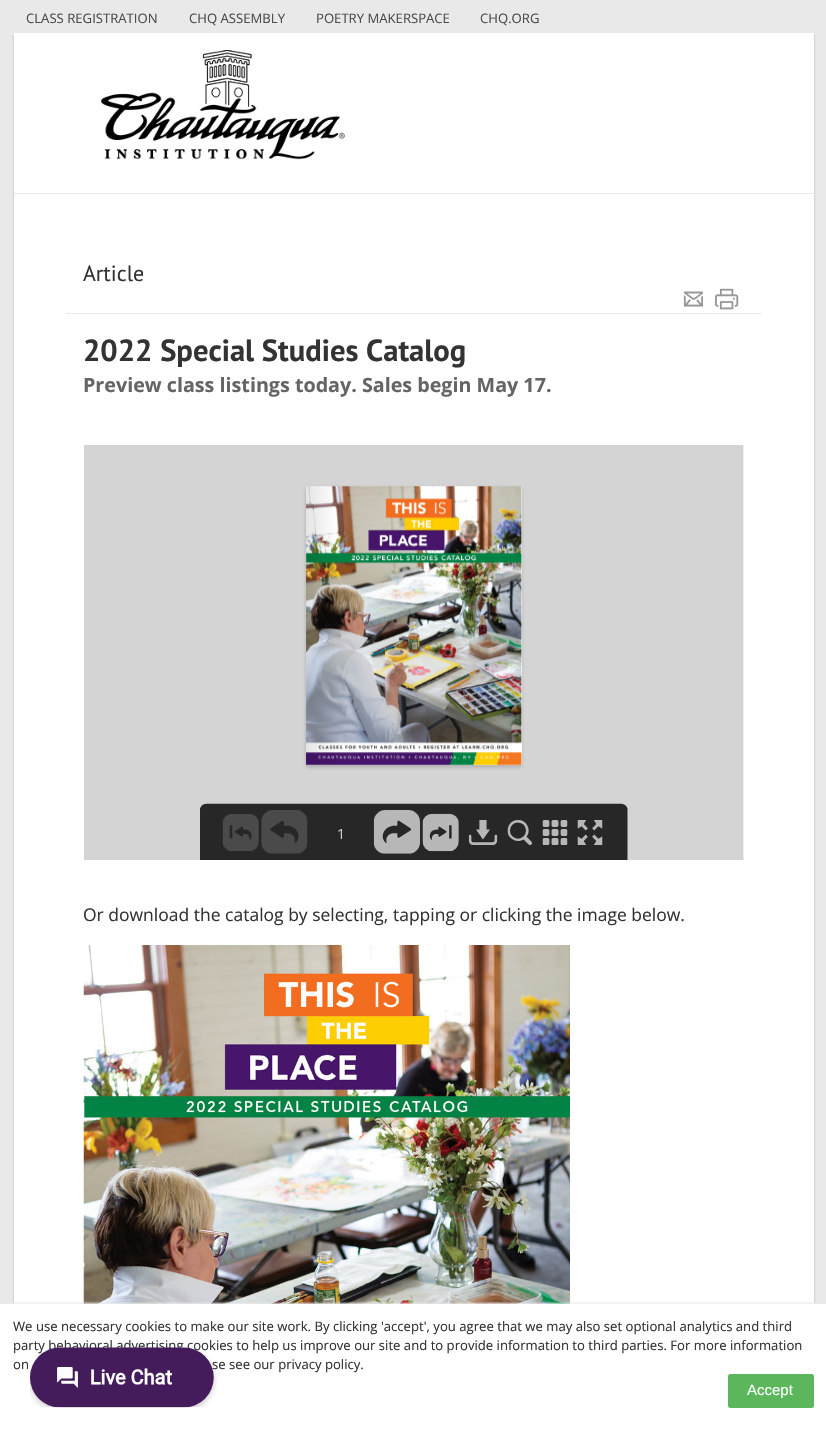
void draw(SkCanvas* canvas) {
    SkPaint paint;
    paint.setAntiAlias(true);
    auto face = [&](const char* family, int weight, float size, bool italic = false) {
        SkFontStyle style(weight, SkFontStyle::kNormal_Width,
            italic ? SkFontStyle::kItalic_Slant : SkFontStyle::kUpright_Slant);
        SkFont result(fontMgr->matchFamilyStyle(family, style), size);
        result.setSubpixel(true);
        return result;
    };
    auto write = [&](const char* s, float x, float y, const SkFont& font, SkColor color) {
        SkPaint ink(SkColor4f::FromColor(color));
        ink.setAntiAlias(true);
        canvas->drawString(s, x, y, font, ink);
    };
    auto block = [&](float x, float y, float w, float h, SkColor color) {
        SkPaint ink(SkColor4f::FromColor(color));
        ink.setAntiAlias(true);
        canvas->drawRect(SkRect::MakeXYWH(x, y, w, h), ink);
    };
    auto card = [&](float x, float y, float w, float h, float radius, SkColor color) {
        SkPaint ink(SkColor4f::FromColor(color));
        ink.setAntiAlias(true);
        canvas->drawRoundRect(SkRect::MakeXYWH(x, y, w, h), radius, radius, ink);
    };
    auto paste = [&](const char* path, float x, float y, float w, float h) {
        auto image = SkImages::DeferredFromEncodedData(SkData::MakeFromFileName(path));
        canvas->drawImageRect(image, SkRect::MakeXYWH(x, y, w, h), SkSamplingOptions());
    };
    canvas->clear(SkColorSetRGB(233, 233, 233));
    auto kFont1 = face("Open Sans", 400, 13.12f);
    write("CLASS REGISTRATION", 26, 23, kFont1, SkColorSetRGB(76, 76, 76));
    write("CHQ ASSEMBLY", 189, 23, kFont1, SkColorSetRGB(76, 76, 76));
    write("POETRY MAKERSPACE", 316, 23, kFont1, SkColorSetRGB(76, 76, 76));
    write("CHQ.ORG", 480, 23, kFont1, SkColorSetRGB(76, 76, 76));
    paint.setColor(SkColorSetARGB(64, 0, 0, 0));
    paint.setMaskFilter(SkMaskFilter::MakeBlur(kNormal_SkBlurStyle, 1));
    canvas->drawRect(SkRect::MakeXYWH(19, 35, 795, 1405), paint);
    paint.setMaskFilter(nullptr);
    paint.setMaskFilter(SkMaskFilter::MakeBlur(kNormal_SkBlurStyle, 1));
    canvas->drawRect(SkRect::MakeXYWH(14, 35, 795, 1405), paint);
    paint.setMaskFilter(nullptr);
    block(14, 33, 800, 1271, SK_ColorWHITE);
    block(14, 193, 800, 1, SkColorSetRGB(233, 233, 233));
    paste("pic1.png", 101, 50, 244, 110);
    auto kFont2 = face("PT Sans", 400, 22);
    write("Article", 83, 281, kFont2, SkColorSetRGB(51, 51, 51));
    paste("pic2.png", 683, 291, 20, 16);
    paste("pic3.png", 715, 288, 24, 22);
    block(66, 313, 695, 1, SkColorSetRGB(233, 233, 233));
    auto kFont3 = face("PT Sans", 700, 30.6f);
    write("2022 Special Studies Catalog", 83, 361, kFont3, SkColorSetRGB(51, 51, 51));
    auto kFont4 = face("Open Sans", 700, 19.7f);
    write("Preview class listings today. Sales begin May 17.", 83, 392, kFont4, SkColorSetRGB(101, 101, 101));
    paste("pic4.png", 84, 445, 660, 415);
    auto kFont5 = face("Open Sans", 400, 17.5f);
    write("Or download the catalog by selecting, tapping or clicking the image below.", 83, 921, kFont5, SkColorSetRGB(51, 51, 51));
    paste("pic5.png", 83, 945, 487, 359);
    paint.setColor(SkColorSetRGB(233, 233, 233));
    paint.setMaskFilter(SkMaskFilter::MakeBlur(kNormal_SkBlurStyle, 1));
    canvas->drawRect(SkRect::MakeXYWH(0, 1303, 826, 133), paint);
    paint.setMaskFilter(nullptr);
    block(0, 1304, 826, 133, SK_ColorWHITE);
    write("We use necessary cookies to make our site work. By clicking 'accept', you agree that we may also set optional analytics and third", 13, 1331, kFont1, SkColorSetRGB(51, 51, 51));
    write("party behavioral advertising cookies to help us improve our site and to provide information to third parties. For more information", 13, 1350, kFont1, SkColorSetRGB(51, 51, 51));
    write("on", 13, 1369, kFont1, SkColorSetRGB(51, 51, 51));
    write("se see our privacy policy.", 212, 1369, kFont1, SkColorSetRGB(51, 51, 51));
    card(728, 1374, 86, 34, 2.5f, SkColorSetRGB(91, 182, 92));
    auto kFont6 = face("Liberation Sans", 400, 15);
    write("Accept", 747, 1395, kFont6, SK_ColorWHITE);
    paste("pic6.png", 30, 1346, 187, 62);
}
